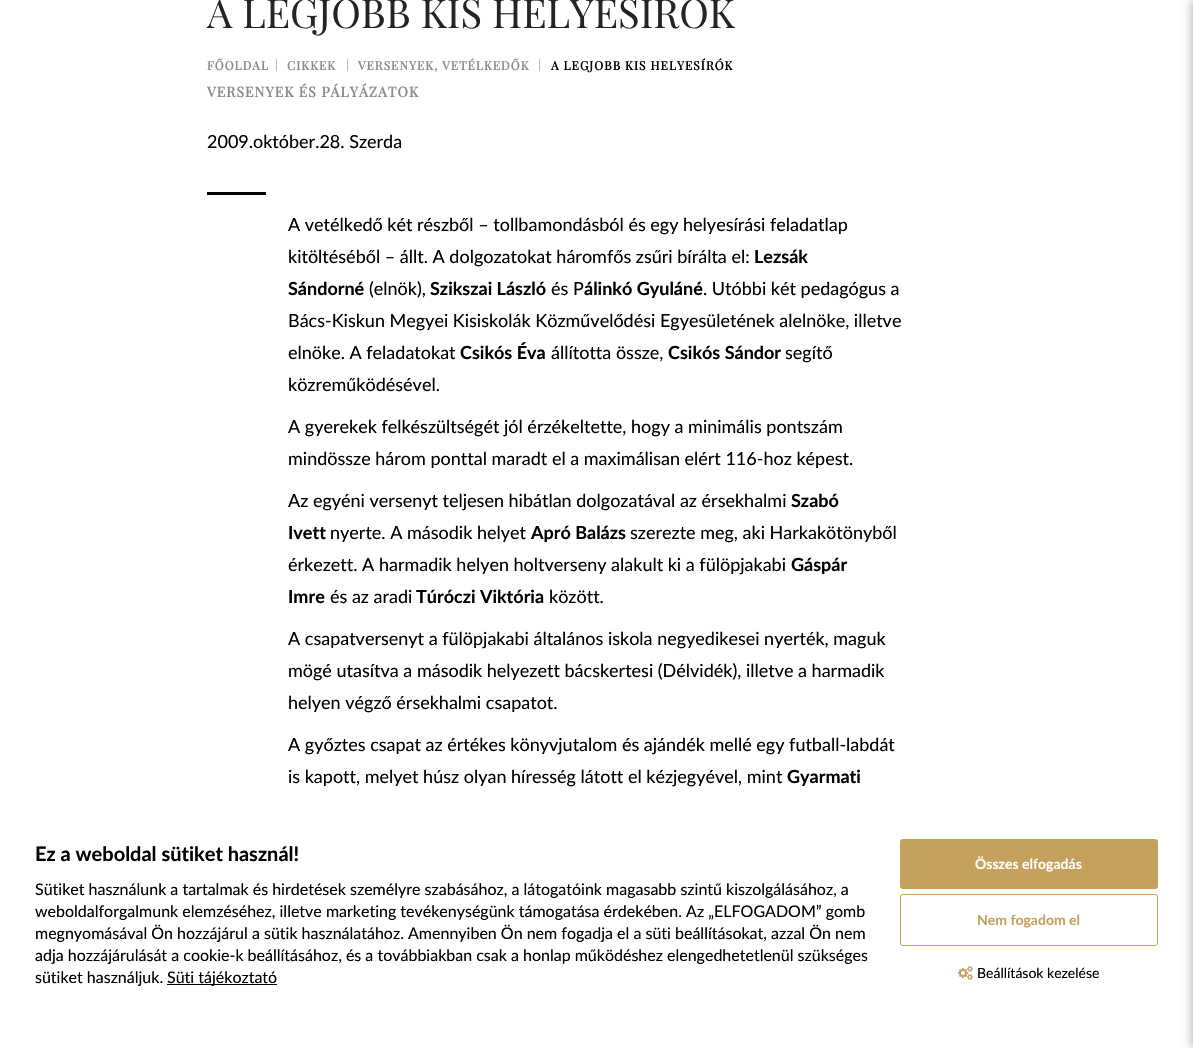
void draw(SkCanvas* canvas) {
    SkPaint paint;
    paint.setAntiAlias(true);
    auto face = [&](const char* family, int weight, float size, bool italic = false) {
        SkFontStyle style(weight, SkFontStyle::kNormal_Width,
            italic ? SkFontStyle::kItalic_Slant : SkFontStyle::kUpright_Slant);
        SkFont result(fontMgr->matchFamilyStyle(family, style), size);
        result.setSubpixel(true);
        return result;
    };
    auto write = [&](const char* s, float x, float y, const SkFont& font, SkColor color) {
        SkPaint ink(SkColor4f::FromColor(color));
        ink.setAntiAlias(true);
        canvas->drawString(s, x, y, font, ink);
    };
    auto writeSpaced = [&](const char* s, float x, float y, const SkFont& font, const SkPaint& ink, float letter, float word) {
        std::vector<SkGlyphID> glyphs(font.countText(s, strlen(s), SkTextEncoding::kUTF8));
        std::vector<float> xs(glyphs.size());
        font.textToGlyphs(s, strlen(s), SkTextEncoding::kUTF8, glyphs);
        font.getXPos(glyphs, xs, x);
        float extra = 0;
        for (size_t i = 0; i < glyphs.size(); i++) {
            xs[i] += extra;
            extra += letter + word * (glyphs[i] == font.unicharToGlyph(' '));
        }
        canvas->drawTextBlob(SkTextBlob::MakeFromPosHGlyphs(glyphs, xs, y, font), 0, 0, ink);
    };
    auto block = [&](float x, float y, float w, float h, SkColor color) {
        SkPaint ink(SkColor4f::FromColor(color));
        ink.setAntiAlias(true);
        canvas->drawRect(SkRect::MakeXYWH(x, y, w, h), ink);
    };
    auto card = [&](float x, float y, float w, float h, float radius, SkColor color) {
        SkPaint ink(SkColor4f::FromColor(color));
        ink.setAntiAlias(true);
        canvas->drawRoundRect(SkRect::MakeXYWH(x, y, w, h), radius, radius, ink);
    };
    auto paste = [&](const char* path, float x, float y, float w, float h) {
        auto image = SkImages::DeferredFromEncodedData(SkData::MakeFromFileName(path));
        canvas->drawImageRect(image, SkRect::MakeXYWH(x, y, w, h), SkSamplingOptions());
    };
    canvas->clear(SK_ColorWHITE);
    auto kFont1 = face("Playfair Display", 400, 40);
    write("A LEGJOBB KIS HELYESÍRÓK", 207, 28, kFont1, SkColorSetRGB(36, 36, 36));
    auto kFont2 = face("Playfair Display", 700, 12);
    paint.setColor(SkColorSetRGB(138, 138, 138));
    writeSpaced("FŐOLDAL", 207, 70, kFont2, paint, 1, 0);
    auto kFont3 = face("Playfair Display", 400, 12);
    write("|", 275, 69, kFont3, SkColorSetRGB(138, 138, 138));
    writeSpaced("CIKKEK", 287, 70, kFont2, paint, 1, 0);
    write("|", 346, 69, kFont3, SkColorSetRGB(138, 138, 138));
    writeSpaced("VERSENYEK, VETÉLKEDŐK", 358, 70, kFont2, paint, 1, 0);
    write("|", 538, 69, kFont3, SkColorSetRGB(138, 138, 138));
    paint.setColor(SK_ColorBLACK);
    writeSpaced("A LEGJOBB KIS HELYESÍRÓK", 551, 70, kFont2, paint, 1, 0);
    auto kFont4 = face("Playfair Display", 700, 14);
    paint.setColor(SkColorSetRGB(138, 138, 138));
    writeSpaced("VERSENYEK ÉS PÁLYÁZATOK", 207, 97, kFont4, paint, 1, 0);
    auto kFont5 = face("Lato", 400, 18);
    write("2009.október.28. Szerda", 207, 148, kFont5, SK_ColorBLACK);
    block(207, 192, 59, 3, SK_ColorBLACK);
    write("A vetélkedő két részből – tollbamondásból és egy helyesírási feladatlap", 288, 231, kFont5, SK_ColorBLACK);
    write("kitöltéséből – állt. A dolgozatokat háromfős zsűri bírálta el:", 288, 263, kFont5, SK_ColorBLACK);
    auto kFont6 = face("Lato", 700, 18);
    write("Lezsák", 754, 263, kFont6, SK_ColorBLACK);
    write("Sándorné", 288, 295, kFont6, SK_ColorBLACK);
    write("(elnök),", 369, 295, kFont5, SK_ColorBLACK);
    write("Szikszai László", 430, 295, kFont6, SK_ColorBLACK);
    write("és P", 551, 295, kFont5, SK_ColorBLACK);
    write("álinkó Gyuláné", 584, 295, kFont6, SK_ColorBLACK);
    write(". Utóbbi két pedagógus a", 703, 295, kFont5, SK_ColorBLACK);
    write("Bács-Kiskun Megyei Kisiskolák Közművelődési Egyesületének alelnöke, illetve", 288, 327, kFont5, SK_ColorBLACK);
    write("elnöke. A feladatokat", 288, 359, kFont5, SK_ColorBLACK);
    write("Csikós Éva", 460, 359, kFont6, SK_ColorBLACK);
    write("állította össze,", 551, 359, kFont5, SK_ColorBLACK);
    write("Csikós Sándor", 668, 359, kFont6, SK_ColorBLACK);
    write("segítő", 785, 359, kFont5, SK_ColorBLACK);
    write("közreműködésével.", 288, 391, kFont5, SK_ColorBLACK);
    write("A gyerekek felkészültségét jól érzékeltette, hogy a minimális pontszám", 288, 433, kFont5, SK_ColorBLACK);
    write("mindössze három ponttal maradt el a maximálisan elért 116-hoz képest.", 288, 465, kFont5, SK_ColorBLACK);
    write("Az egyéni versenyt teljesen hibátlan dolgozatával az érsekhalmi", 288, 507, kFont5, SK_ColorBLACK);
    write("Szabó", 791, 507, kFont6, SK_ColorBLACK);
    write("Ivett", 288, 539, kFont6, SK_ColorBLACK);
    write("nyerte. A második helyet", 330, 539, kFont5, SK_ColorBLACK);
    write("Apró Balázs", 531, 539, kFont6, SK_ColorBLACK);
    write("szerezte meg, aki Harkakötönyből", 630, 539, kFont5, SK_ColorBLACK);
    write("érkezett. A harmadik helyen holtverseny alakult ki a fülöpjakabi", 288, 571, kFont5, SK_ColorBLACK);
    write("Gáspár", 791, 571, kFont6, SK_ColorBLACK);
    write("Imre", 288, 603, kFont6, SK_ColorBLACK);
    write("és az aradi", 330, 603, kFont5, SK_ColorBLACK);
    write("Túróczi Viktória", 416, 603, kFont6, SK_ColorBLACK);
    write("között.", 549, 603, kFont5, SK_ColorBLACK);
    write("A csapatversenyt a fülöpjakabi általános iskola negyedikesei nyerték, maguk", 288, 645, kFont5, SK_ColorBLACK);
    write("mögé utasítva a második helyezett bácskertesi (Délvidék), illetve a harmadik", 288, 677, kFont5, SK_ColorBLACK);
    write("helyen végző érsekhalmi csapatot.", 288, 709, kFont5, SK_ColorBLACK);
    write("A győztes csapat az értékes könyvjutalom és ajándék mellé egy futball-labdát", 288, 751, kFont5, SK_ColorBLACK);
    write("is kapott, melyet húsz olyan híresség látott el kézjegyével, mint", 288, 783, kFont5, SK_ColorBLACK);
    write("Gyarmati", 787, 783, kFont6, SK_ColorBLACK);
    auto kFont7 = face("Lato", 700, 20);
    write("Ez a weboldal sütiket használ!", 35, 861, kFont7, SK_ColorBLACK);
    auto kFont8 = face("Lato", 400, 16);
    write("Sütiket használunk a tartalmak és hirdetések személyre szabásához, a látogatóink magasabb szintű kiszolgálásához, a", 35, 895, kFont8, SK_ColorBLACK);
    write("weboldalforgalmunk elemzéséhez, illetve marketing tevékenységünk támogatása érdekében. Az „ELFOGADOM” gomb", 35, 917, kFont8, SK_ColorBLACK);
    write("megnyomásával Ön hozzájárul a sütik használatához. Amennyiben Ön nem fogadja el a süti beállításokat, azzal Ön nem", 35, 939, kFont8, SK_ColorBLACK);
    write("adja hozzájárulását a cookie-k beállításához, és a továbbiakban csak a honlap működéshez elengedhetetlenül szükséges", 35, 961, kFont8, SK_ColorBLACK);
    write("sütiket használjuk.", 35, 983, kFont8, SK_ColorBLACK);
    block(167, 984, 110, 1, SK_ColorBLACK);
    write("Süti tájékoztató", 167, 983, kFont8, SK_ColorBLACK);
    card(900, 839, 258, 50, 3, SkColorSetRGB(198, 160, 93));
    auto kFont9 = face("Lato", 700, 14);
    write("Összes elfogadás", 975, 869, kFont9, SK_ColorWHITE);
    paint.setStyle(SkPaint::kStroke_Style);
    paint.setStrokeWidth(1);
    paint.setColor(SkColorSetRGB(198, 160, 93));
    canvas->drawRoundRect(SkRect::MakeXYWH(900.5f, 894.5f, 257, 51), 2.5f, 2.5f, paint);
    write("Nem fogadom el", 977, 925, kFont9, SkColorSetRGB(198, 160, 93));
    paste("pic1.png", 958, 966, 15, 14);
    auto kFont10 = face("Lato", 400, 14);
    write("Beállítások kezelése", 977, 978, kFont10, SK_ColorBLACK);
    paint.setStyle(SkPaint::kFill_Style);
    paint.setColor(SkColorSetARGB(94, 0, 0, 0));
    paint.setMaskFilter(SkMaskFilter::MakeBlur(kNormal_SkBlurStyle, 6));
    canvas->drawRect(SkRect::MakeXYWH(1193, 0, 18, 1048), paint);
    paint.setMaskFilter(nullptr);
}
